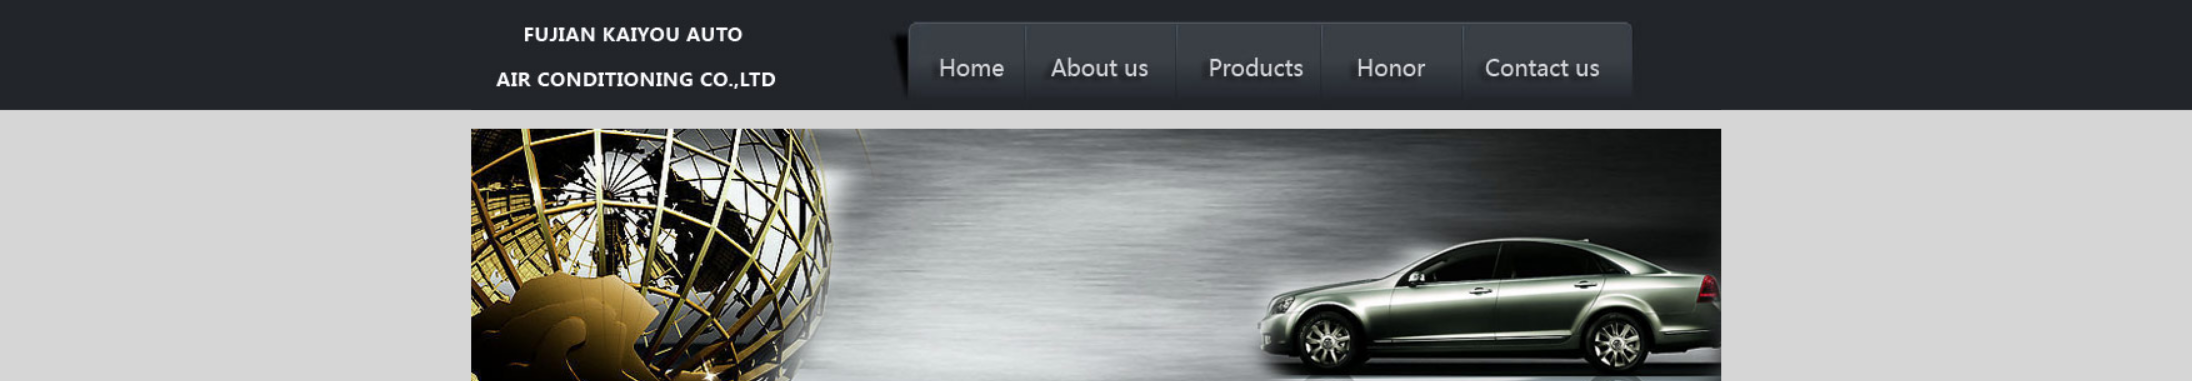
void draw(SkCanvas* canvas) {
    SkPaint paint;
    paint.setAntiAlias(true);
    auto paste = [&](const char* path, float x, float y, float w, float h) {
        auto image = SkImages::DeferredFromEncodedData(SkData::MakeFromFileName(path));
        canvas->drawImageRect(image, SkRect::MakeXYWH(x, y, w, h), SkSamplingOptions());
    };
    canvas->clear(SK_ColorWHITE);
    paste("pic1.png", 0, 0, 2192, 381);
    paste("pic2.png", 471, 20, 1251, 90);
    paste("pic3.png", 471, 128, 1251, 253);
}
